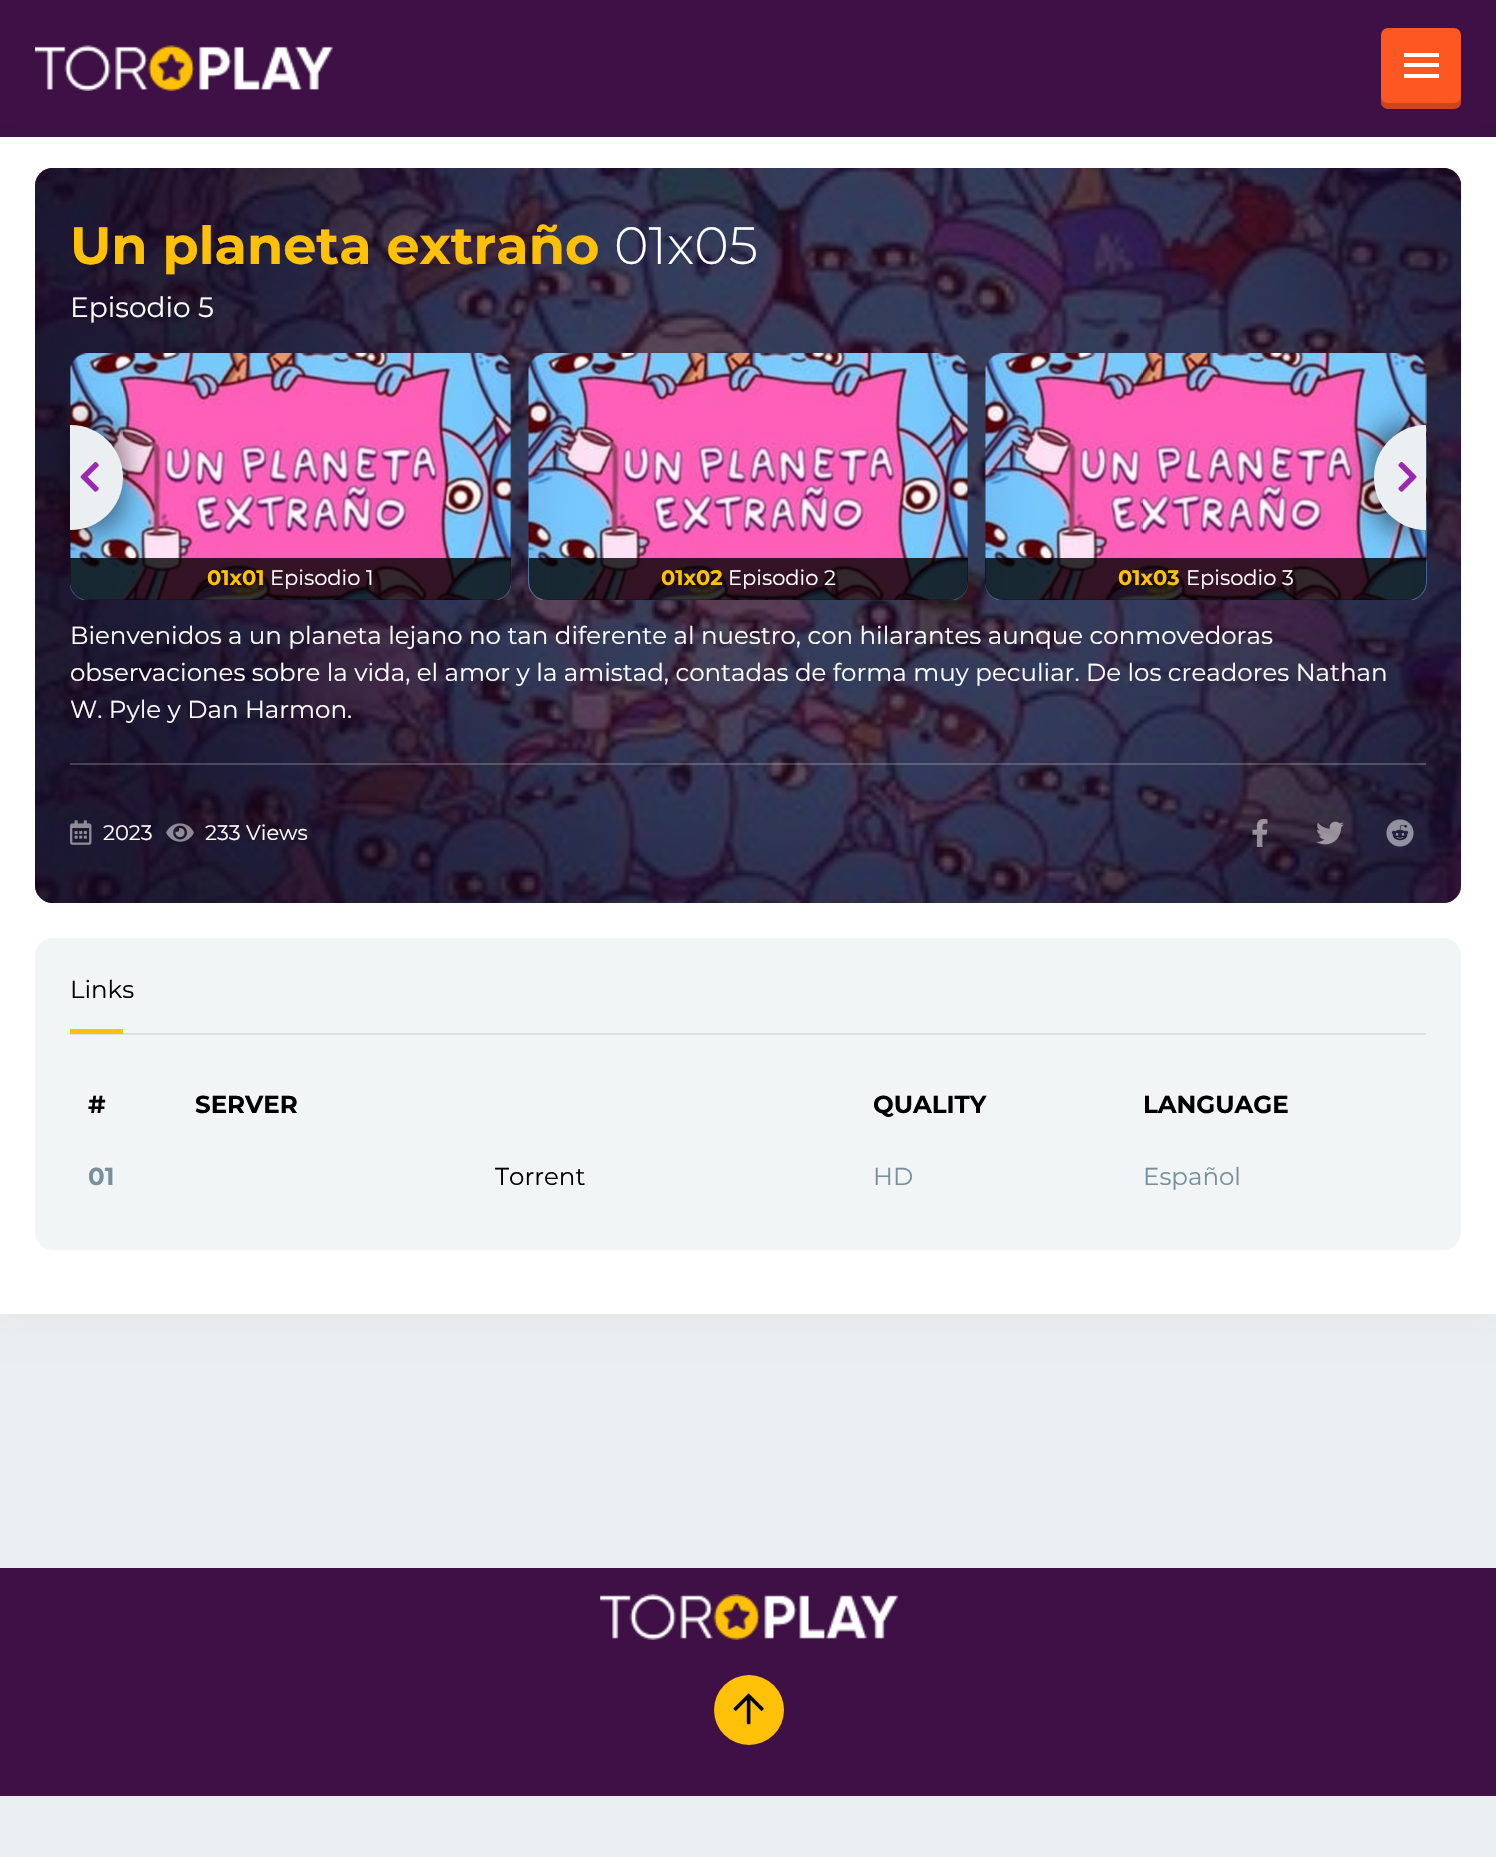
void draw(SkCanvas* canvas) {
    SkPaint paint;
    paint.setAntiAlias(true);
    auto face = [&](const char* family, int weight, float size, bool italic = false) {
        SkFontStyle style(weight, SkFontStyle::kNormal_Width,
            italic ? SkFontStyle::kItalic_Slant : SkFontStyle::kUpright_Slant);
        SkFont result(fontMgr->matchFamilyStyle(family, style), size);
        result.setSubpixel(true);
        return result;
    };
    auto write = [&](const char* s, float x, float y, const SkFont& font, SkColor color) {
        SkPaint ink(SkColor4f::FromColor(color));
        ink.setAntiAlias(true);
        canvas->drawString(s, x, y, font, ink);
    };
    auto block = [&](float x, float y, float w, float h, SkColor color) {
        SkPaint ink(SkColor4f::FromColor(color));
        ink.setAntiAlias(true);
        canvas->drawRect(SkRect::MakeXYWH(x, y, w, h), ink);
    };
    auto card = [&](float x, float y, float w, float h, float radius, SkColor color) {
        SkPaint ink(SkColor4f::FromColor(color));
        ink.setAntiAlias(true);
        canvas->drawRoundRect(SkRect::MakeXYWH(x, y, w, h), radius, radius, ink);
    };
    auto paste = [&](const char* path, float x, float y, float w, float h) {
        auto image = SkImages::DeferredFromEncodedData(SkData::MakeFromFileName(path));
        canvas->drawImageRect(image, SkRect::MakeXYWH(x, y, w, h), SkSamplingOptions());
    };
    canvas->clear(SkColorSetRGB(236, 239, 241));
    block(0, 0, 1496, 137, SkColorSetRGB(62, 16, 70));
    paste("pic1.png", 35, 45, 298, 46);
    paint.setColor(SkColorSetARGB(13, 0, 0, 0));
    paint.setMaskFilter(SkMaskFilter::MakeBlur(kNormal_SkBlurStyle, 17.5f));
    canvas->drawRect(SkRect::MakeXYWH(0, 137, 1496, 1177), paint);
    paint.setMaskFilter(nullptr);
    card(1381, 28, 80, 81, 7, SkColorSetRGB(255, 87, 34));
    paint.setColor(SkColorSetARGB(51, 0, 0, 0));
    canvas->drawPath(SkPathBuilder().moveTo(1381, 96).cubicTo(1381, 111, 1384, 109, 1399, 109).lineTo(1443, 109).cubicTo(1458, 109, 1461, 111, 1461, 96).cubicTo(1461, 100, 1458, 103, 1454, 103).lineTo(1388, 103).cubicTo(1384, 103, 1381, 100, 1381, 96).close().detach(), paint);
    block(1404, 53, 35, 4, SK_ColorWHITE);
    block(1404, 63, 35, 4, SK_ColorWHITE);
    block(1404, 74, 35, 4, SK_ColorWHITE);
    block(0, 137, 1496, 1177, SK_ColorWHITE);
    paste("pic2.png", 35, 168, 1427, 735);
    card(35, 168, 1426, 735, 18, SkColorSetARGB(77, 156, 39, 176));
    card(35, 168, 1426, 735, 18, SkColorSetARGB(153, 0, 0, 0));
    auto kFont1 = face("Montserrat", 700, 52.5f);
    write("Un planeta extraño", 70, 264, kFont1, SkColorSetRGB(255, 193, 7));
    auto kFont2 = face("Montserrat", 300, 52.5f);
    write("01x05", 614, 264, kFont2, SK_ColorWHITE);
    auto kFont3 = face("Montserrat", 400, 28);
    write("Episodio 5", 70, 317, kFont3, SK_ColorWHITE);
    paste("pic5.png", 70, 353, 442, 247);
    paint.setColor(SkColorSetARGB(204, 0, 0, 0));
    canvas->drawPath(SkPathBuilder().moveTo(70, 558).lineTo(511, 558).lineTo(511, 582).cubicTo(511, 592, 503, 600, 493, 600).lineTo(88, 600).cubicTo(78, 600, 70, 592, 70, 582).close().detach(), paint);
    paint.setColor(SkColorSetARGB(128, 0, 0, 0));
    paint.setMaskFilter(SkMaskFilter::MakeBlur(kNormal_SkBlurStyle, 14));
    canvas->drawRoundRect(SkRect::MakeXYWH(70, 425, 53, 105), 53, 53, paint);
    paint.setMaskFilter(nullptr);
    paint.setColor(SkColorSetRGB(236, 239, 241));
    canvas->drawPath(SkPathBuilder().moveTo(70, 425).lineTo(70.5f, 425).cubicTo(99.5f, 425, 123, 448.5f, 123, 477.5f).cubicTo(123, 506.5f, 99.5f, 530, 70.5f, 530).lineTo(70, 530).close().detach(), paint);
    paste("pic3.png", 80, 462, 19, 30);
    paste("pic7.png", 985, 353, 442, 247);
    paint.setColor(SkColorSetARGB(204, 0, 0, 0));
    canvas->drawPath(SkPathBuilder().moveTo(985, 558).lineTo(1426, 558).lineTo(1426, 582).cubicTo(1426, 592, 1418, 600, 1408, 600).lineTo(1003, 600).cubicTo(993, 600, 985, 592, 985, 582).close().detach(), paint);
    paint.setColor(SkColorSetARGB(128, 0, 0, 0));
    paint.setMaskFilter(SkMaskFilter::MakeBlur(kNormal_SkBlurStyle, 14));
    canvas->drawRoundRect(SkRect::MakeXYWH(1374, 425, 52, 105), 53, 53, paint);
    paint.setMaskFilter(nullptr);
    paint.setColor(SkColorSetRGB(236, 239, 241));
    canvas->drawPath(SkPathBuilder().moveTo(1426, 425).lineTo(1426, 530).cubicTo(1397.5f, 530, 1374, 506.5f, 1374, 478).lineTo(1374, 477).cubicTo(1374, 448.5f, 1397.5f, 425, 1426, 425).close().detach(), paint);
    paste("pic4.png", 1398, 462, 19, 30);
    auto kFont4 = face("Montserrat", 700, 21);
    write("01x01", 207, 585, kFont4, SkColorSetRGB(255, 193, 7));
    auto kFont5 = face("Montserrat", 400, 21);
    write("Episodio 1", 270, 585, kFont5, SK_ColorWHITE);
    paste("pic6.png", 528, 353, 440, 247);
    paint.setColor(SkColorSetARGB(204, 0, 0, 0));
    canvas->drawPath(SkPathBuilder().moveTo(529, 558).lineTo(968, 558).lineTo(968, 582).cubicTo(968, 592, 960, 600, 950, 600).lineTo(547, 600).cubicTo(537, 600, 529, 592, 529, 582).close().detach(), paint);
    write("01x02", 661, 585, kFont4, SkColorSetRGB(255, 193, 7));
    write("Episodio 2", 728, 585, kFont5, SK_ColorWHITE);
    write("01x03", 1118, 585, kFont4, SkColorSetRGB(255, 193, 7));
    write("Episodio 3", 1186, 585, kFont5, SK_ColorWHITE);
    auto kFont6 = face("Montserrat", 400, 24.5f);
    write("Bienvenidos a un planeta lejano no tan diferente al nuestro, con hilarantes aunque conmovedoras", 70, 644, kFont6, SK_ColorWHITE);
    write("observaciones sobre la vida, el amor y la amistad, contadas de forma muy peculiar. De los creadores Nathan", 70, 681, kFont6, SK_ColorWHITE);
    write("W. Pyle y Dan Harmon.", 70, 718, kFont6, SK_ColorWHITE);
    block(70, 763, 1356, 2, SkColorSetARGB(51, 255, 255, 255));
    paste("pic8.png", 70, 820, 22, 25);
    write("2023", 103, 840, kFont5, SK_ColorWHITE);
    paste("pic9.png", 166, 823, 28, 19);
    write("233 Views", 205, 840, kFont5, SK_ColorWHITE);
    paste("pic10.png", 1252, 819, 16, 28);
    paste("pic11.png", 1316, 821, 28, 24);
    paste("pic12.png", 1386, 819, 28, 28);
    card(35, 938, 1426, 312, 18, SkColorSetRGB(242, 245, 246));
    write("Links", 70, 998, kFont6, SK_ColorBLACK);
    block(70, 1033, 1356, 2, SkColorSetRGB(218, 225, 228));
    block(70, 1029, 53, 5, SkColorSetRGB(255, 193, 7));
    auto kFont7 = face("Montserrat", 700, 24.5f);
    write("#", 88, 1113, kFont7, SK_ColorBLACK);
    write("SERVER", 195, 1113, kFont7, SK_ColorBLACK);
    write("QUALITY", 873, 1113, kFont7, SK_ColorBLACK);
    write("LANGUAGE", 1143, 1113, kFont7, SK_ColorBLACK);
    write("01", 88, 1185, kFont7, SkColorSetRGB(120, 144, 156));
    write("Torrent", 495, 1185, kFont6, SK_ColorBLACK);
    write("HD", 873, 1185, kFont6, SkColorSetRGB(120, 144, 156));
    write("Español", 1143, 1185, kFont6, SkColorSetRGB(120, 144, 156));
    block(0, 1568, 1496, 228, SkColorSetRGB(62, 16, 70));
    paste("pic13.png", 600, 1594, 298, 46);
    paint.setColor(SkColorSetRGB(255, 193, 7));
    canvas->drawCircle(749, 1710, 35, paint);
    paste("pic14.png", 733, 1693, 31, 32);
}
